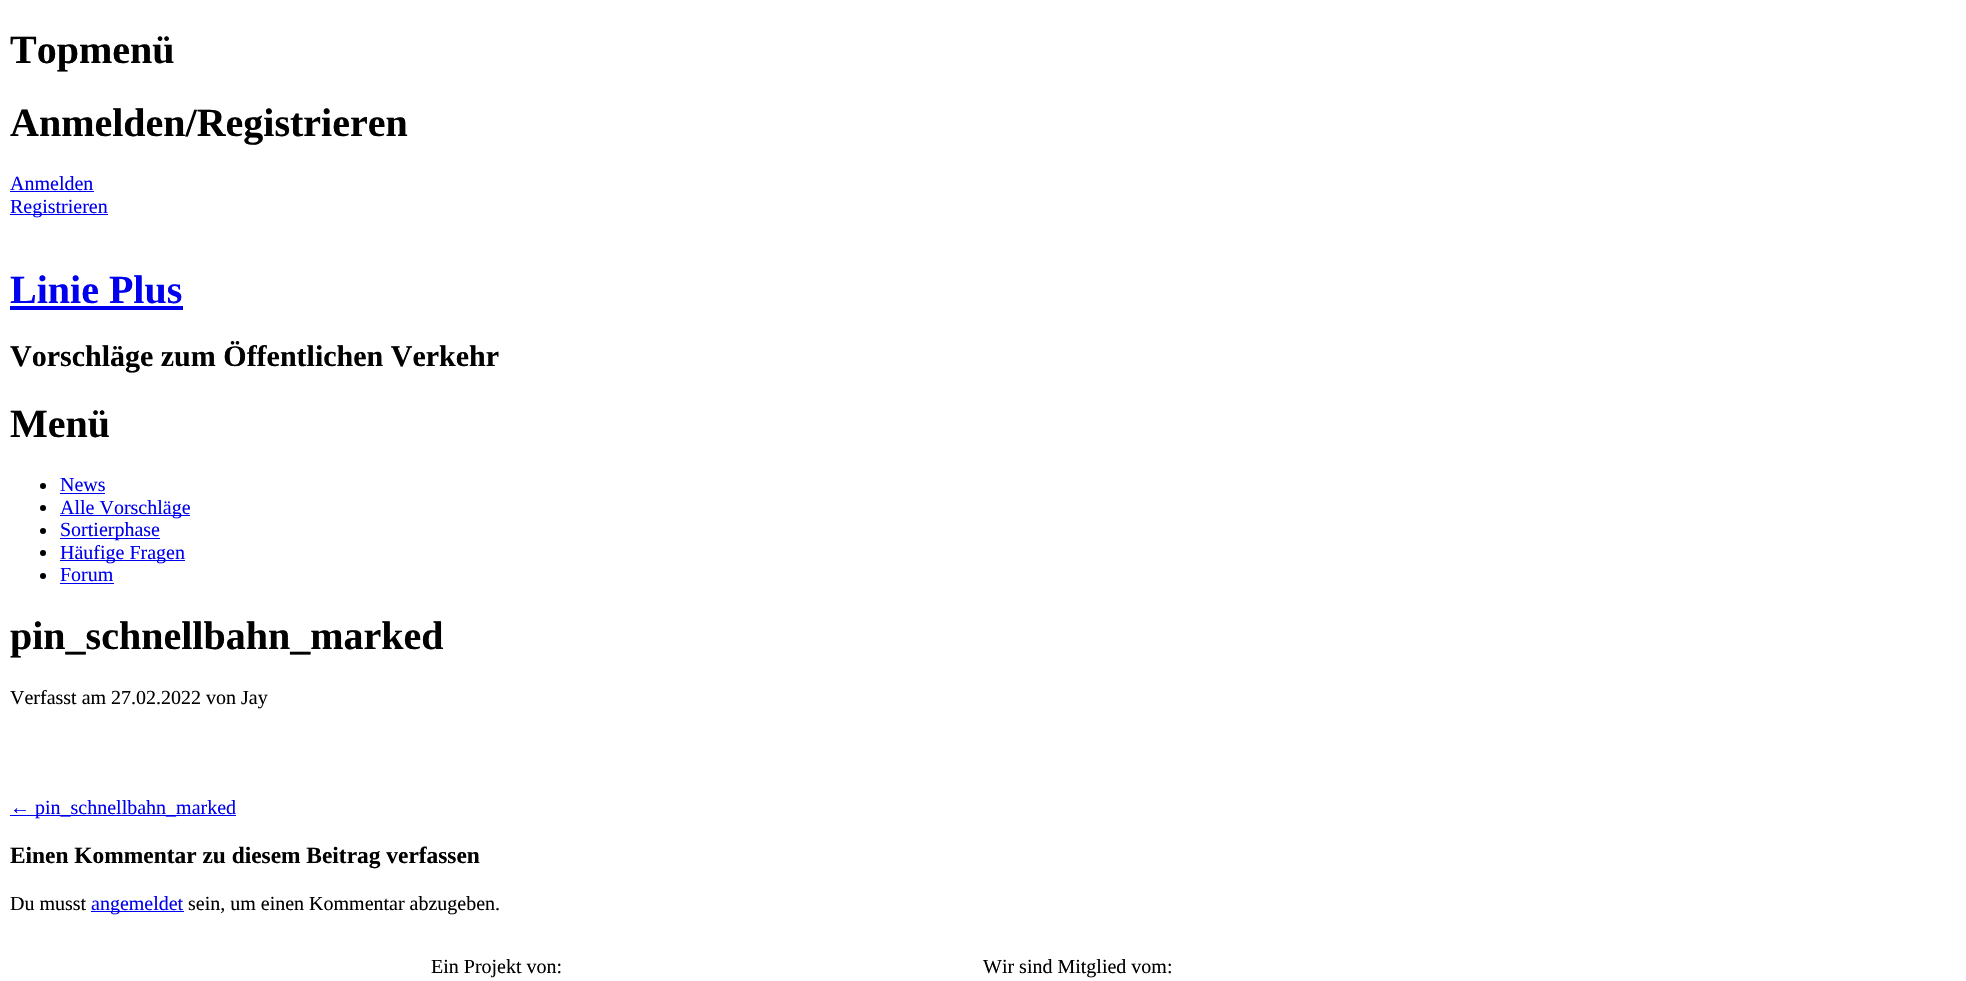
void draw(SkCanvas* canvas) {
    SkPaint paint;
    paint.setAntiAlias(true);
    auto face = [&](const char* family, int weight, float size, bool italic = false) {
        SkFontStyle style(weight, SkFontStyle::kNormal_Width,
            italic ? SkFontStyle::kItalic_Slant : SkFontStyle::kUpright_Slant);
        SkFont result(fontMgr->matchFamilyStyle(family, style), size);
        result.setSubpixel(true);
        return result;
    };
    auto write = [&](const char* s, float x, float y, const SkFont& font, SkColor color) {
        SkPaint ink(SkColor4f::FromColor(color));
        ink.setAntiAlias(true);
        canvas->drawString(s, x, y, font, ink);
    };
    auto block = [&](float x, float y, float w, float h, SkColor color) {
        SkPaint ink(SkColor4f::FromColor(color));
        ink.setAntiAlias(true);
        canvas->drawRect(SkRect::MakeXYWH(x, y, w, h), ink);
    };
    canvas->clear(SK_ColorWHITE);
    auto kFont1 = face("Liberation Serif", 700, 40);
    write("Topmenü", 10, 63, kFont1, SK_ColorBLACK);
    write("Anmelden/Registrieren", 10, 136, kFont1, SK_ColorBLACK);
    auto kFont2 = face("Liberation Serif", 400, 20);
    write("Anmelden", 10, 190, kFont2, SkColorSetRGB(0, 0, 238));
    block(10, 191, 84, 1, SkColorSetRGB(0, 0, 238));
    block(10, 214, 98, 1, SkColorSetRGB(0, 0, 238));
    write("Registrieren", 10, 213, kFont2, SkColorSetRGB(0, 0, 238));
    write("Linie Plus", 10, 303, kFont1, SkColorSetRGB(0, 0, 238));
    block(10, 306, 173, 4, SkColorSetRGB(0, 0, 238));
    auto kFont3 = face("Liberation Serif", 700, 30);
    write("Vorschläge zum Öffentlichen Verkehr", 10, 366, kFont3, SK_ColorBLACK);
    write("Menü", 10, 437, kFont1, SK_ColorBLACK);
    paint.setColor(SK_ColorBLACK);
    canvas->drawCircle(43, 486, 3, paint);
    write("News", 60, 491, kFont2, SkColorSetRGB(0, 0, 238));
    block(60, 493, 45, 1, SkColorSetRGB(0, 0, 238));
    canvas->drawCircle(43, 508, 3, paint);
    block(60, 515, 130, 1, SkColorSetRGB(0, 0, 238));
    write("Alle Vorschläge", 60, 514, kFont2, SkColorSetRGB(0, 0, 238));
    canvas->drawCircle(43, 531, 3, paint);
    block(60, 538, 100, 1, SkColorSetRGB(0, 0, 238));
    write("Sortierphase", 60, 536, kFont2, SkColorSetRGB(0, 0, 238));
    canvas->drawCircle(43, 553, 3, paint);
    block(60, 560, 125, 1, SkColorSetRGB(0, 0, 238));
    write("Häufige Fragen", 60, 559, kFont2, SkColorSetRGB(0, 0, 238));
    canvas->drawCircle(43, 576, 3, paint);
    write("Forum", 60, 581, kFont2, SkColorSetRGB(0, 0, 238));
    block(60, 583, 54, 1, SkColorSetRGB(0, 0, 238));
    write("pin_schnellbahn_marked", 10, 649, kFont1, SK_ColorBLACK);
    write("Verfasst am 27.02.2022 von Jay", 10, 704, kFont2, SK_ColorBLACK);
    block(10, 815, 226, 1, SkColorSetRGB(0, 0, 238));
    write("← pin_schnellbahn_marked", 10, 814, kFont2, SkColorSetRGB(0, 0, 238));
    auto kFont4 = face("Liberation Serif", 700, 23.4f);
    write("Einen Kommentar zu diesem Beitrag verfassen", 10, 863, kFont4, SK_ColorBLACK);
    write("Du musst", 10, 910, kFont2, SK_ColorBLACK);
    block(91, 911, 93, 1, SkColorSetRGB(0, 0, 238));
    write("angemeldet", 91, 910, kFont2, SkColorSetRGB(0, 0, 238));
    write("sein, um einen Kommentar abzugeben.", 188, 910, kFont2, SK_ColorBLACK);
    write("Ein Projekt von:", 431, 973, kFont2, SK_ColorBLACK);
    write("Wir sind Mitglied vom:", 983, 973, kFont2, SK_ColorBLACK);
}
